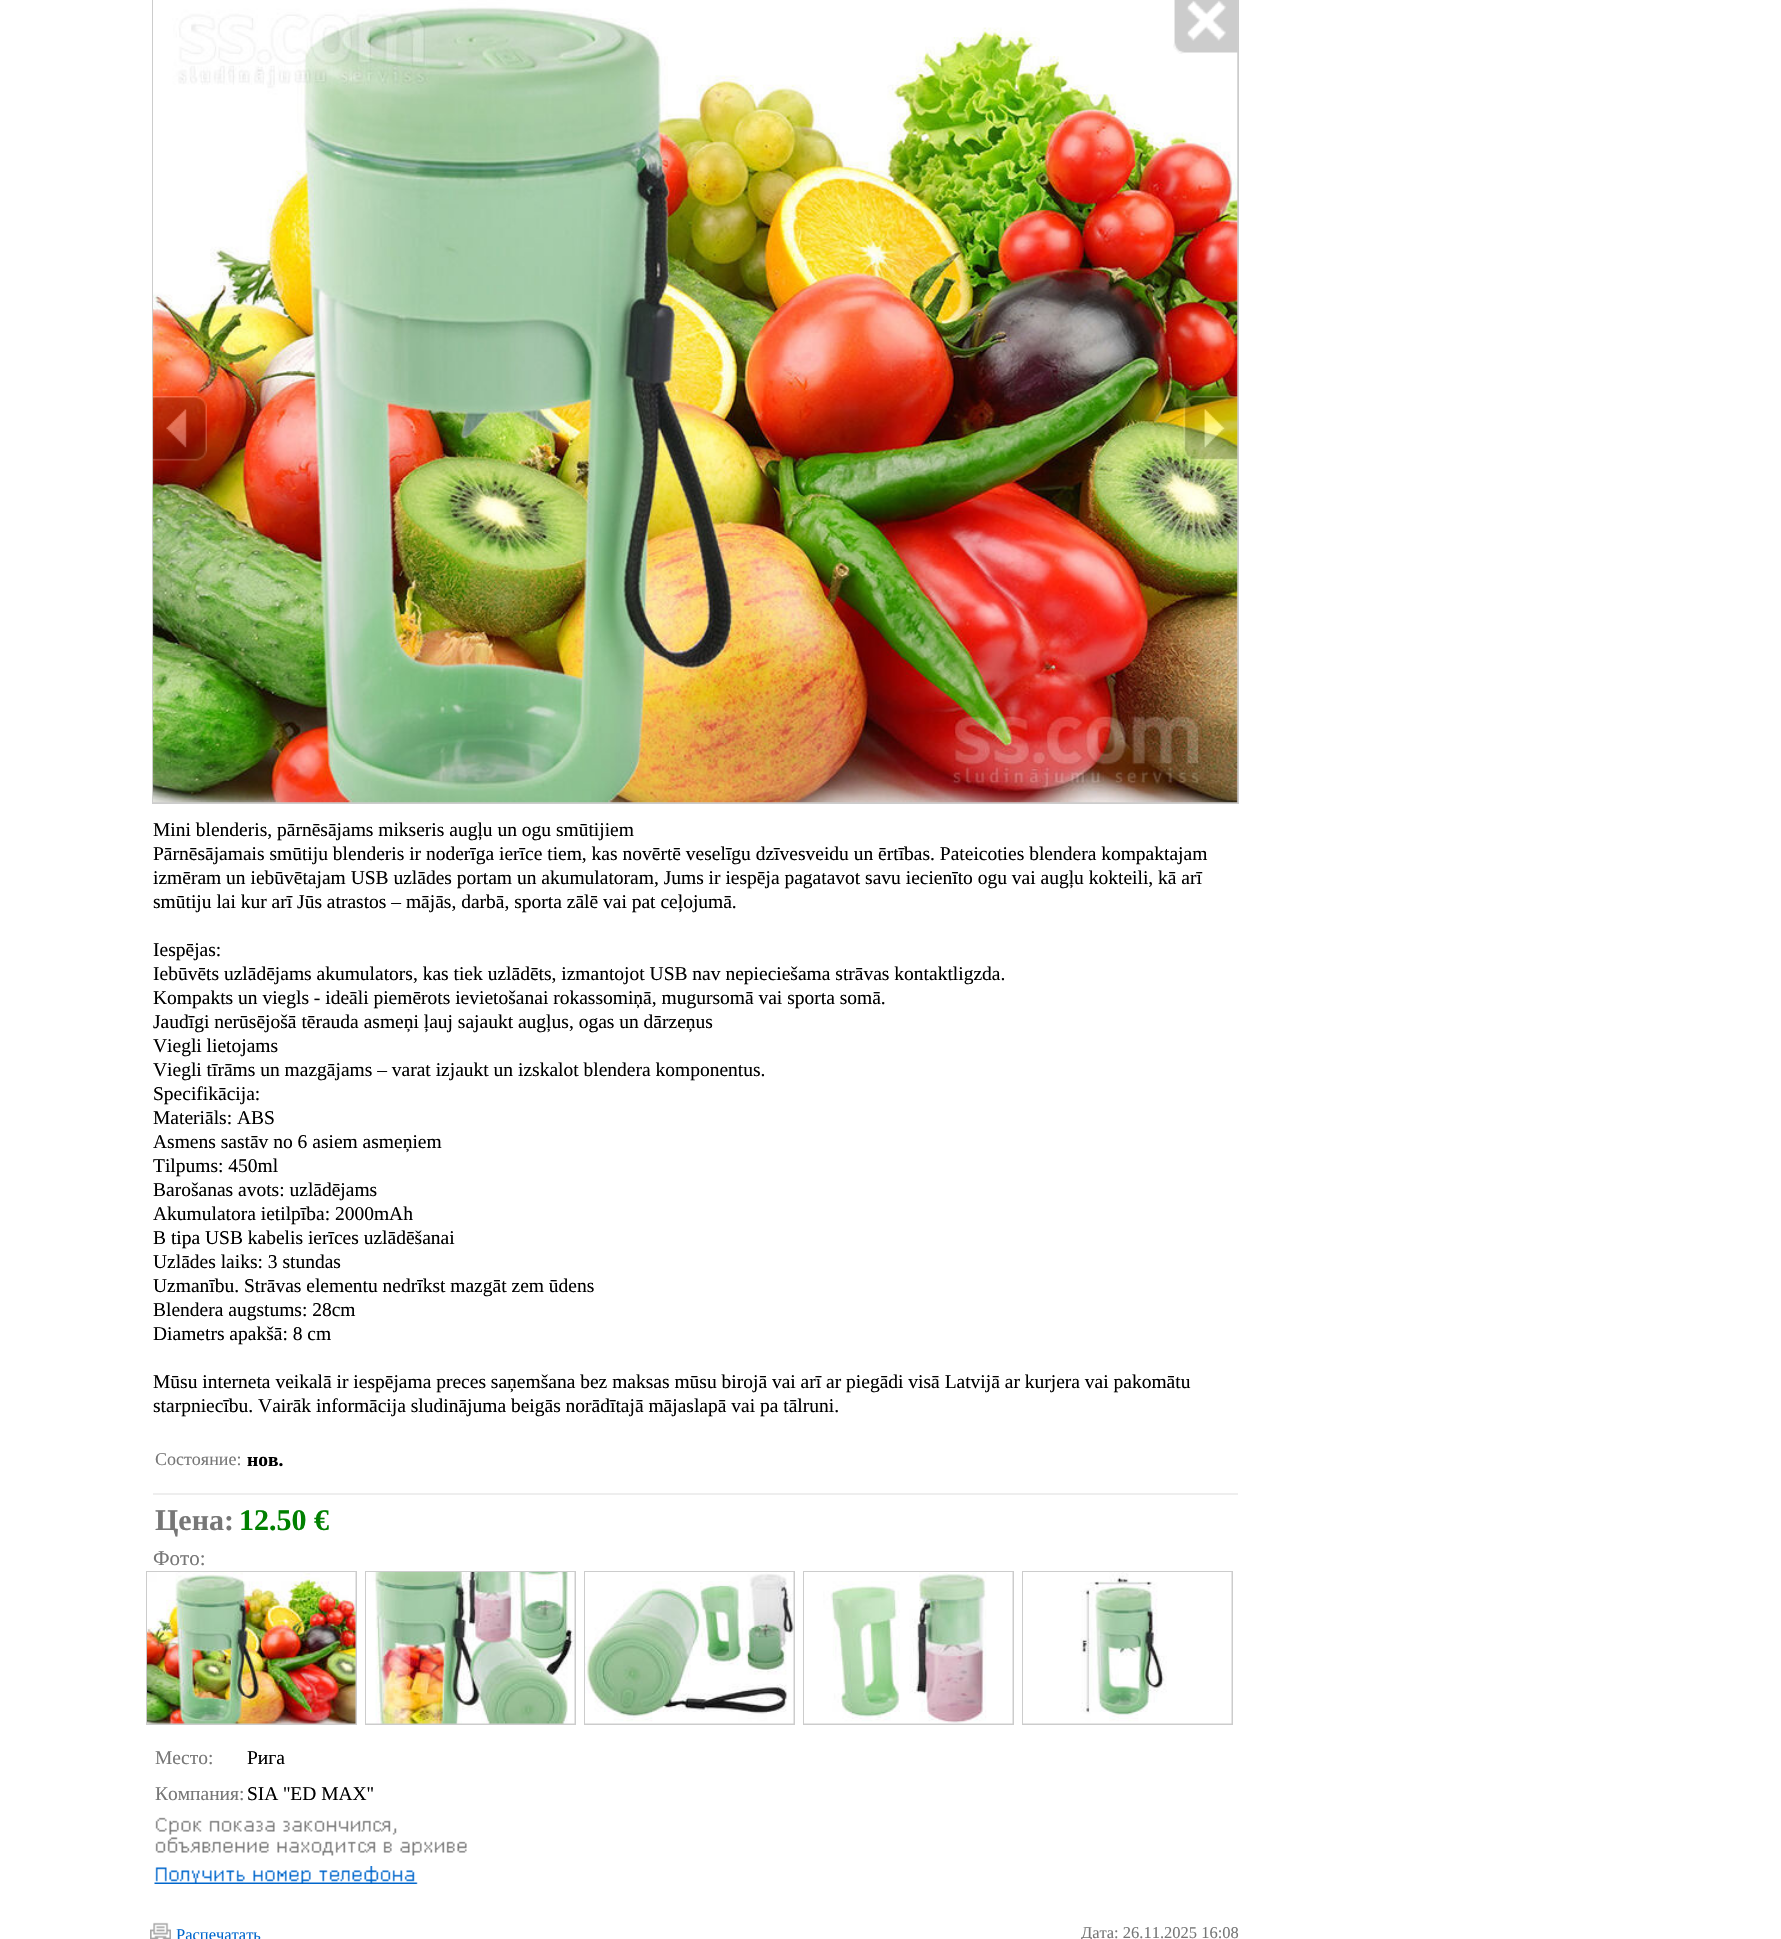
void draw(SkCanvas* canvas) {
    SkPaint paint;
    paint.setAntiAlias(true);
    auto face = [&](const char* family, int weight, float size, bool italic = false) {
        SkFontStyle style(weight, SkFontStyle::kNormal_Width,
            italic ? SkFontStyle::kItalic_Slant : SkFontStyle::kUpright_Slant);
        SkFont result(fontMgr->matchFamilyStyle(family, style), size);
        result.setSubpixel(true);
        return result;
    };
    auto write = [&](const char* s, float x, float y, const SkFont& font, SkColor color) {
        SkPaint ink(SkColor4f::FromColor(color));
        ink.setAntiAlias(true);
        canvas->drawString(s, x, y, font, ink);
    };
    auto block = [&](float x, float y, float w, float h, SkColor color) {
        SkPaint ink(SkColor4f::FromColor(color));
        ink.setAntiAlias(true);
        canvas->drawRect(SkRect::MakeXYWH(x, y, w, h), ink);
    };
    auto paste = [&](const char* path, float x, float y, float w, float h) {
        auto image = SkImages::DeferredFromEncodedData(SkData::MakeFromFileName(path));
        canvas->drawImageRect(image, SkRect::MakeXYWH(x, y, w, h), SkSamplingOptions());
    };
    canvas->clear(SK_ColorWHITE);
    paint.setStyle(SkPaint::kStroke_Style);
    paint.setStrokeWidth(2);
    paint.setColor(SkColorSetRGB(204, 204, 204));
    canvas->drawRect(SkRect::MakeXYWH(153, -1, 1085, 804), paint);
    paste("pic1.png", 153, 0, 1085, 803);
    paste("pic2.png", 1173, 0, 65, 54);
    paste("pic3.png", 153, 396, 54, 65);
    paste("pic4.png", 1183, 396, 55, 65);
    auto kFont1 = face("Liberation Serif", 400, 19.5f);
    write("Mini blenderis, pārnēsājams mikseris augļu un ogu smūtijiem", 153, 836, kFont1, SK_ColorBLACK);
    write("Pārnēsājamais smūtiju blenderis ir noderīga ierīce tiem, kas novērtē veselīgu dzīvesveidu un ērtības. Pateicoties blendera kompaktajam", 153, 860, kFont1, SK_ColorBLACK);
    write("izmēram un iebūvētajam USB uzlādes portam un akumulatoram, Jums ir iespēja pagatavot savu iecienīto ogu vai augļu kokteili, kā arī", 153, 884, kFont1, SK_ColorBLACK);
    write("smūtiju lai kur arī Jūs atrastos – mājās, darbā, sporta zālē vai pat ceļojumā.", 153, 908, kFont1, SK_ColorBLACK);
    write("Iespējas:", 153, 956, kFont1, SK_ColorBLACK);
    write("Iebūvēts uzlādējams akumulators, kas tiek uzlādēts, izmantojot USB nav nepieciešama strāvas kontaktligzda.", 153, 980, kFont1, SK_ColorBLACK);
    write("Kompakts un viegls - ideāli piemērots ievietošanai rokassomiņā, mugursomā vai sporta somā.", 153, 1004, kFont1, SK_ColorBLACK);
    write("Jaudīgi nerūsējošā tērauda asmeņi ļauj sajaukt augļus, ogas un dārzeņus", 153, 1028, kFont1, SK_ColorBLACK);
    write("Viegli lietojams", 153, 1052, kFont1, SK_ColorBLACK);
    write("Viegli tīrāms un mazgājams – varat izjaukt un izskalot blendera komponentus.", 153, 1076, kFont1, SK_ColorBLACK);
    write("Specifikācija:", 153, 1100, kFont1, SK_ColorBLACK);
    write("Materiāls: ABS", 153, 1124, kFont1, SK_ColorBLACK);
    write("Asmens sastāv no 6 asiem asmeņiem", 153, 1148, kFont1, SK_ColorBLACK);
    write("Tilpums: 450ml", 153, 1172, kFont1, SK_ColorBLACK);
    write("Barošanas avots: uzlādējams", 153, 1196, kFont1, SK_ColorBLACK);
    write("Akumulatora ietilpība: 2000mAh", 153, 1220, kFont1, SK_ColorBLACK);
    write("B tipa USB kabelis ierīces uzlādēšanai", 153, 1244, kFont1, SK_ColorBLACK);
    write("Uzlādes laiks: 3 stundas", 153, 1268, kFont1, SK_ColorBLACK);
    write("Uzmanību. Strāvas elementu nedrīkst mazgāt zem ūdens", 153, 1292, kFont1, SK_ColorBLACK);
    write("Blendera augstums: 28cm", 153, 1316, kFont1, SK_ColorBLACK);
    write("Diametrs apakšā: 8 cm", 153, 1340, kFont1, SK_ColorBLACK);
    write("Mūsu interneta veikalā ir iespējama preces saņemšana bez maksas mūsu birojā vai arī ar piegādi visā Latvijā ar kurjera vai pakomātu", 153, 1388, kFont1, SK_ColorBLACK);
    write("starpniecību. Vairāk informācija sludinājuma beigās norādītajā mājaslapā vai pa tālruni.", 153, 1412, kFont1, SK_ColorBLACK);
    auto kFont2 = face("Liberation Serif", 400, 18);
    write("Состояние:", 155, 1465, kFont2, SkColorSetRGB(119, 119, 119));
    auto kFont3 = face("Liberation Serif", 700, 19.5f);
    write("нов.", 247, 1466, kFont3, SK_ColorBLACK);
    block(153, 1493, 1085, 2, SkColorSetRGB(238, 238, 238));
    auto kFont4 = face("Liberation Serif", 700, 30);
    write("Цена:", 155, 1530, kFont4, SkColorSetRGB(119, 119, 119));
    write("12.50 €", 239, 1530, kFont4, SkColorSetRGB(0, 128, 0));
    auto kFont5 = face("Liberation Serif", 400, 21);
    write("Фото:", 153, 1565, kFont5, SkColorSetRGB(119, 119, 119));
    canvas->drawRect(SkRect::MakeXYWH(147, 1572, 209, 152), paint);
    paste("pic5.png", 147, 1572, 209, 152);
    canvas->drawRect(SkRect::MakeXYWH(366, 1572, 209, 152), paint);
    paste("pic6.png", 366, 1572, 209, 152);
    canvas->drawRect(SkRect::MakeXYWH(585, 1572, 209, 152), paint);
    paste("pic7.png", 585, 1572, 209, 152);
    canvas->drawRect(SkRect::MakeXYWH(804, 1572, 209, 152), paint);
    paste("pic8.png", 804, 1572, 209, 152);
    canvas->drawRect(SkRect::MakeXYWH(1023, 1572, 209, 152), paint);
    paste("pic9.png", 1023, 1572, 209, 152);
    write("Место:", 155, 1764, kFont1, SkColorSetRGB(119, 119, 119));
    write("Рига", 247, 1764, kFont1, SK_ColorBLACK);
    write("Компания:", 155, 1800, kFont1, SkColorSetRGB(119, 119, 119));
    write("SIA ''ED MAX''", 247, 1800, kFont1, SK_ColorBLACK);
    paste("pic10.png", 155, 1817, 312, 39);
    paste("pic11.png", 154, 1866, 264, 18);
    paste("pic12.png", 150, 1922, 21, 17);
    auto kFont6 = face("Liberation Serif", 400, 16.5f);
    write("Распечатать", 176, 1940, kFont6, SkColorSetRGB(0, 102, 204));
    write("Дата: 26.11.2025 16:08", 1081, 1938, kFont6, SkColorSetRGB(119, 119, 119));
}
